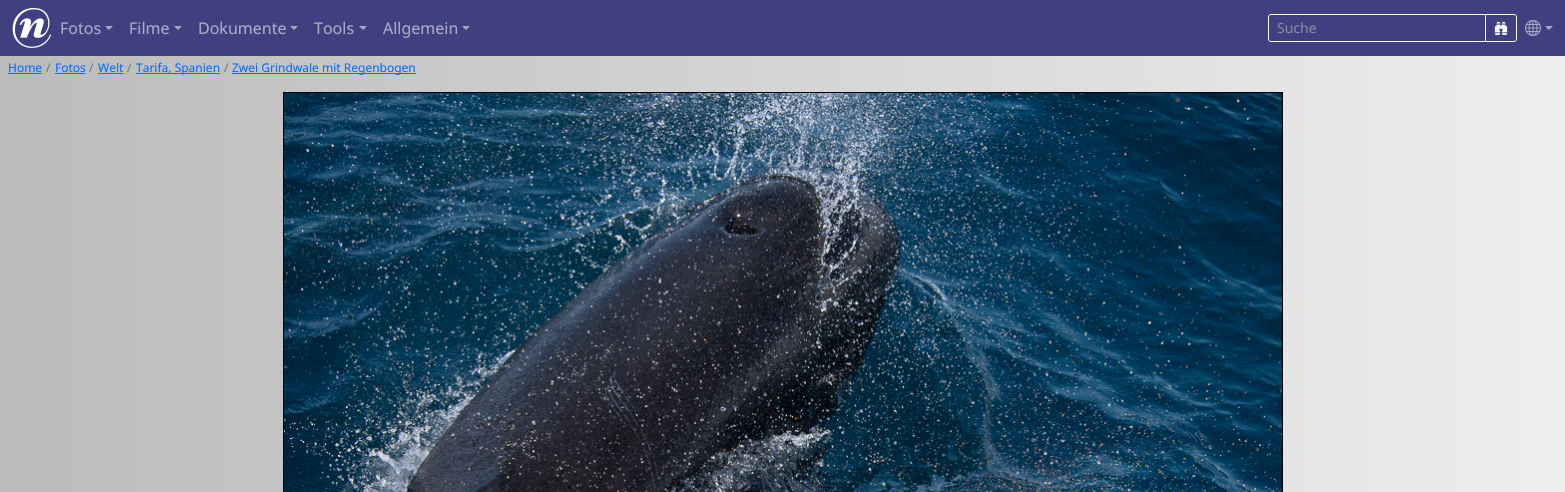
void draw(SkCanvas* canvas) {
    SkPaint paint;
    paint.setAntiAlias(true);
    auto face = [&](const char* family, int weight, float size, bool italic = false) {
        SkFontStyle style(weight, SkFontStyle::kNormal_Width,
            italic ? SkFontStyle::kItalic_Slant : SkFontStyle::kUpright_Slant);
        SkFont result(fontMgr->matchFamilyStyle(family, style), size);
        result.setSubpixel(true);
        return result;
    };
    auto write = [&](const char* s, float x, float y, const SkFont& font, SkColor color) {
        SkPaint ink(SkColor4f::FromColor(color));
        ink.setAntiAlias(true);
        canvas->drawString(s, x, y, font, ink);
    };
    auto block = [&](float x, float y, float w, float h, SkColor color) {
        SkPaint ink(SkColor4f::FromColor(color));
        ink.setAntiAlias(true);
        canvas->drawRect(SkRect::MakeXYWH(x, y, w, h), ink);
    };
    auto paste = [&](const char* path, float x, float y, float w, float h) {
        auto image = SkImages::DeferredFromEncodedData(SkData::MakeFromFileName(path));
        canvas->drawImageRect(image, SkRect::MakeXYWH(x, y, w, h), SkSamplingOptions());
    };
    canvas->clear(SK_ColorWHITE);
    {
        const SkColor colors[] = {SkColorSetRGB(187, 187, 187), SkColorSetRGB(238, 238, 238)};
        const float stops[] = {0, 1};
        const SkPoint ends[] = {{0, 446}, {1565, 445}};
        paint.setShader(SkGradientShader::MakeLinear(ends, colors, stops, 2, SkTileMode::kClamp));
        paint.setAlpha(255);
    }
    canvas->drawRect(SkRect::MakeXYWH(0, 56, 1565, 436), paint);
    block(0, 0, 1565, 56, SkColorSetRGB(64, 64, 128));
    paste("pic1.png", 12, 8, 40, 40);
    auto kFont1 = face("Noto Sans", 400, 16);
    write("Fotos", 60, 34, kFont1, SkColorSetRGB(169, 169, 198));
    paint.setShader(nullptr);
    paint.setColor(SkColorSetRGB(169, 169, 198));
    canvas->drawPath(SkPathBuilder().moveTo(105, 26).lineTo(113, 26).lineTo(109, 30).close().detach(), paint);
    write("Filme", 129, 34, kFont1, SkColorSetRGB(169, 169, 198));
    canvas->drawPath(SkPathBuilder().moveTo(174, 26).lineTo(182, 26).lineTo(178, 30).close().detach(), paint);
    write("Dokumente", 198, 34, kFont1, SkColorSetRGB(169, 169, 198));
    canvas->drawPath(SkPathBuilder().moveTo(290, 26).lineTo(298, 26).lineTo(294, 30).close().detach(), paint);
    write("Tools", 314, 34, kFont1, SkColorSetRGB(169, 169, 198));
    canvas->drawPath(SkPathBuilder().moveTo(359, 26).lineTo(367, 26).lineTo(363, 30).close().detach(), paint);
    write("Allgemein", 383, 34, kFont1, SkColorSetRGB(169, 169, 198));
    canvas->drawPath(SkPathBuilder().moveTo(462, 26).lineTo(470, 26).lineTo(466, 30).close().detach(), paint);
    paint.setStyle(SkPaint::kStroke_Style);
    paint.setStrokeWidth(1);
    paint.setColor(SkColorSetRGB(248, 249, 250));
    canvas->drawPath(SkPathBuilder().moveTo(1271, 14.5f).lineTo(1485.5f, 14.5f).lineTo(1485.5f, 41.5f).lineTo(1271, 41.5f).cubicTo(1269.5f, 41.5f, 1268.5f, 40.5f, 1268.5f, 39).lineTo(1268.5f, 17).cubicTo(1268.5f, 15.5f, 1269.5f, 14.5f, 1271, 14.5f).close().detach(), paint);
    auto kFont2 = face("Noto Sans", 400, 14);
    write("Suche", 1277, 33, kFont2, SkColorSetRGB(134, 134, 166));
    canvas->drawPath(SkPathBuilder().moveTo(1485.5f, 14.5f).lineTo(1514, 14.5f).cubicTo(1515.5f, 14.5f, 1516.5f, 15.5f, 1516.5f, 17).lineTo(1516.5f, 39).cubicTo(1516.5f, 40.5f, 1515.5f, 41.5f, 1514, 41.5f).lineTo(1485.5f, 41.5f).close().detach(), paint);
    paste("pic2.png", 1494, 21, 14, 14);
    paste("pic3.png", 1525, 20, 16, 16);
    paint.setStyle(SkPaint::kFill_Style);
    paint.setColor(SkColorSetRGB(169, 169, 198));
    canvas->drawPath(SkPathBuilder().moveTo(1545, 26).lineTo(1553, 26).lineTo(1549, 30).close().detach(), paint);
    auto kFont3 = face("Noto Sans", 400, 12);
    write("Home", 8, 72, kFont3, SkColorSetRGB(13, 110, 253));
    block(8, 73, 34, 1, SkColorSetRGB(13, 110, 253));
    write("/", 46, 72, kFont3, SkColorSetRGB(108, 117, 125));
    write("Fotos", 55, 72, kFont3, SkColorSetRGB(13, 110, 253));
    block(55, 73, 30, 1, SkColorSetRGB(13, 110, 253));
    write("/", 89, 72, kFont3, SkColorSetRGB(108, 117, 125));
    write("Welt", 98, 72, kFont3, SkColorSetRGB(13, 110, 253));
    block(98, 73, 25, 1, SkColorSetRGB(13, 110, 253));
    write("/", 127, 72, kFont3, SkColorSetRGB(108, 117, 125));
    block(136, 73, 84, 1, SkColorSetRGB(13, 110, 253));
    write("Tarifa, Spanien", 136, 72, kFont3, SkColorSetRGB(13, 110, 253));
    write("/", 224, 72, kFont3, SkColorSetRGB(108, 117, 125));
    block(232, 73, 184, 1, SkColorSetRGB(13, 110, 253));
    write("Zwei Grindwale mit Regenbogen", 232, 72, kFont3, SkColorSetRGB(13, 110, 253));
    paint.setStyle(SkPaint::kStroke_Style);
    paint.setColor(SK_ColorBLACK);
    canvas->drawRect(SkRect::MakeXYWH(283.5f, 92.5f, 999, 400), paint);
    paste("pic4.png", 284, 93, 998, 399);
}
